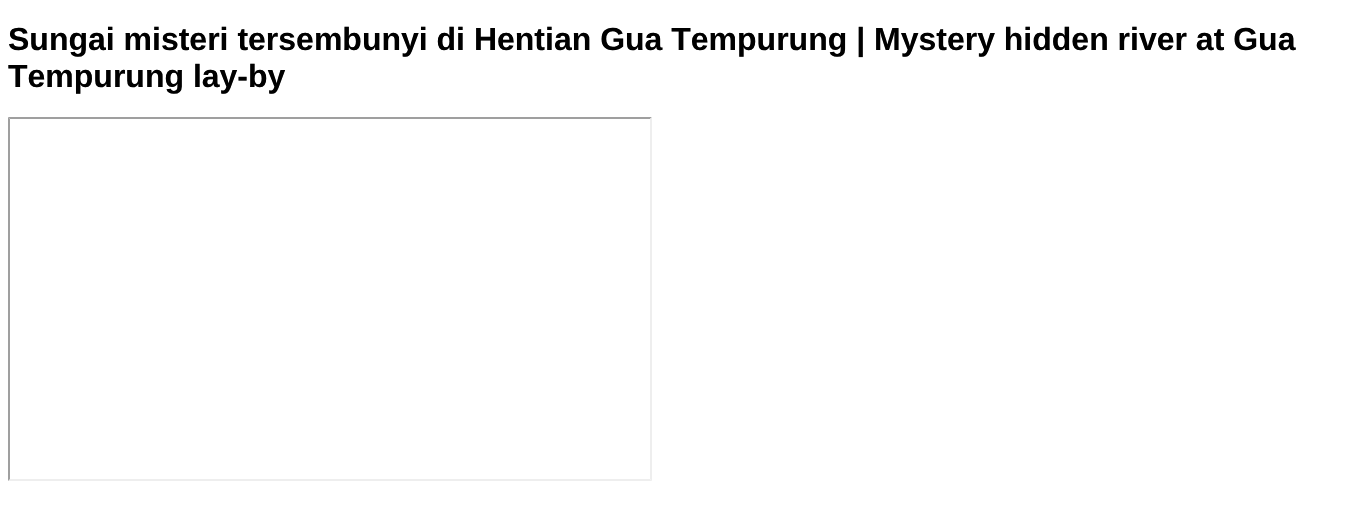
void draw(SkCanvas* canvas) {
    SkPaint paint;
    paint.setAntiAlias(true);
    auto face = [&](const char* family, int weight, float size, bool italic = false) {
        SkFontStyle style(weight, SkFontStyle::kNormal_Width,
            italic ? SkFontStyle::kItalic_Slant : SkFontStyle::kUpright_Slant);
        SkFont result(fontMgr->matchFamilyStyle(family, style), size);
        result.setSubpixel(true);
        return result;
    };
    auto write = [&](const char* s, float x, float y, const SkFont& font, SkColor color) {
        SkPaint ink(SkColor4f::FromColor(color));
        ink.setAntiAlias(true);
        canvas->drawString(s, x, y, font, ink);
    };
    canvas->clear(SK_ColorWHITE);
    auto kFont1 = face("Liberation Sans", 700, 32);
    write("Sungai misteri tersembunyi di Hentian Gua Tempurung | Mystery hidden river at Gua", 8, 50, kFont1, SK_ColorBLACK);
    write("Tempurung lay-by", 8, 87, kFont1, SK_ColorBLACK);
    paint.setColor(SkColorSetRGB(159, 159, 159));
    canvas->drawPath(SkPathBuilder().moveTo(8, 117).lineTo(652, 117).lineTo(650, 119).lineTo(10, 119).close().detach(), paint);
    paint.setColor(SkColorSetRGB(238, 238, 238));
    canvas->drawPath(SkPathBuilder().moveTo(652, 117).lineTo(652, 481).lineTo(650, 479).lineTo(650, 119).close().detach(), paint);
    canvas->drawPath(SkPathBuilder().moveTo(652, 481).lineTo(8, 481).lineTo(10, 479).lineTo(650, 479).close().detach(), paint);
    paint.setColor(SkColorSetRGB(159, 159, 159));
    canvas->drawPath(SkPathBuilder().moveTo(8, 481).lineTo(8, 117).lineTo(10, 119).lineTo(10, 479).close().detach(), paint);
}
